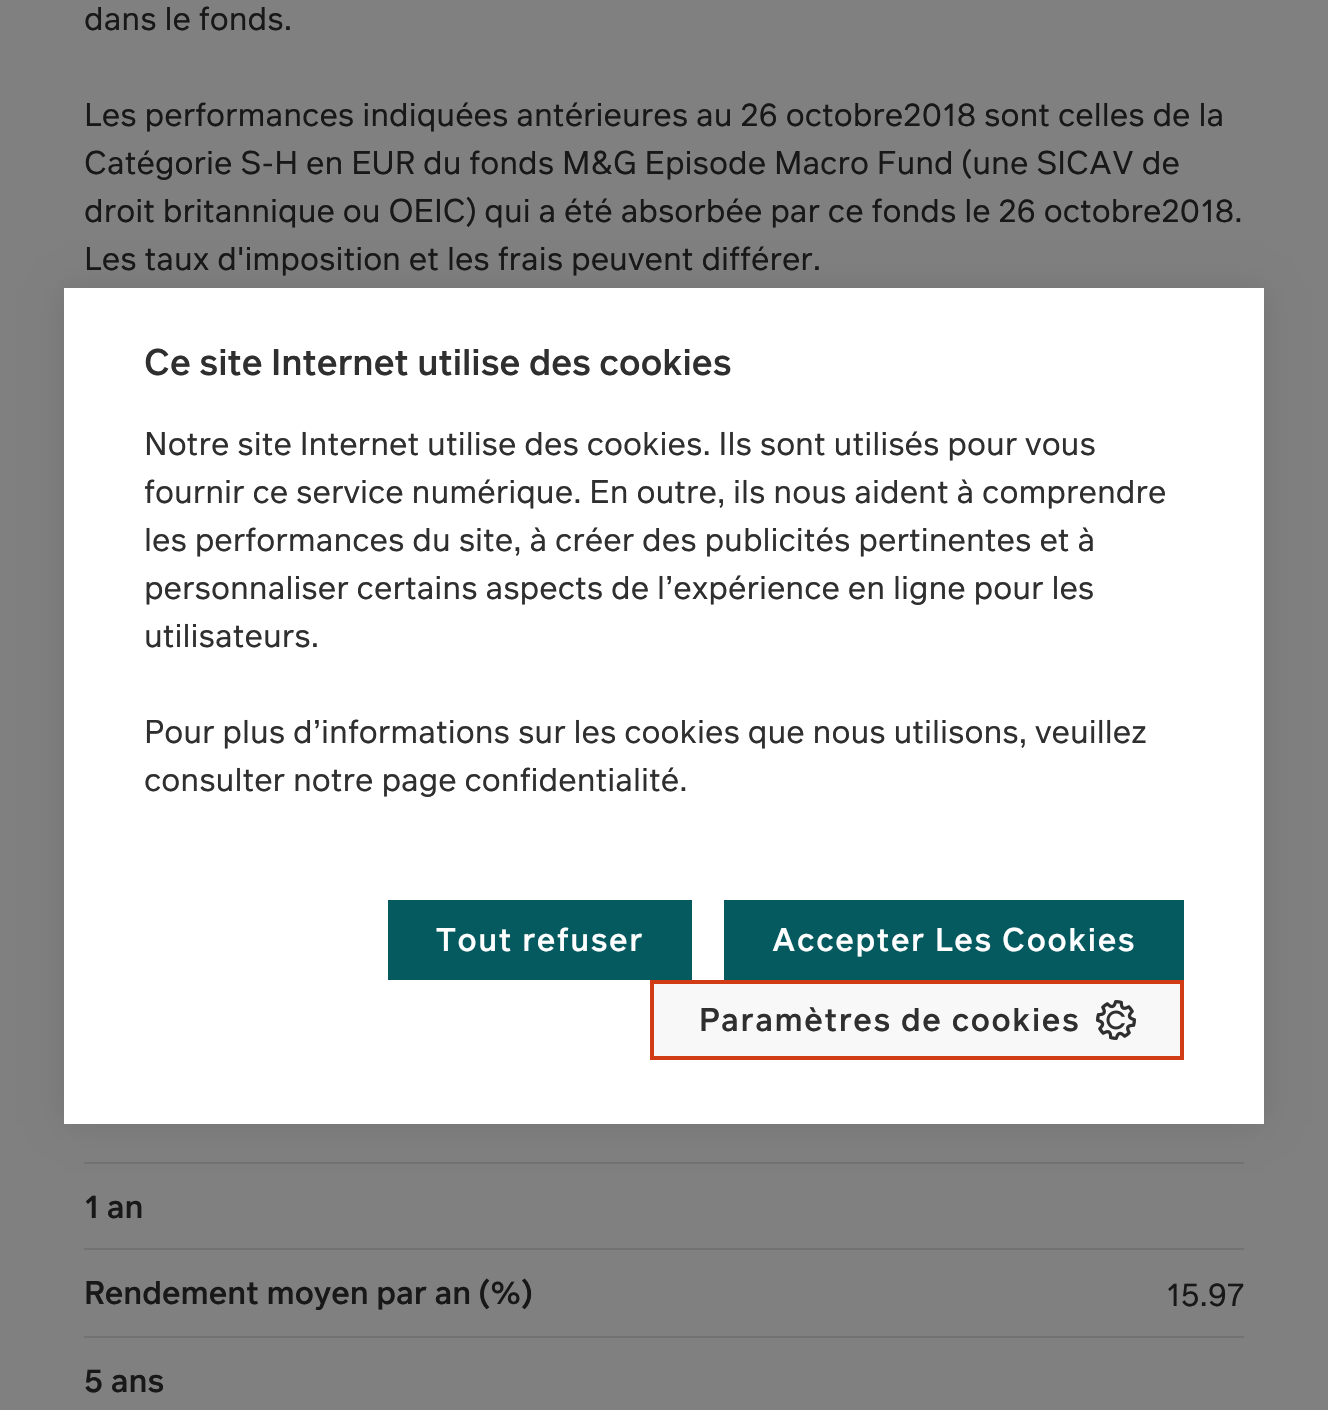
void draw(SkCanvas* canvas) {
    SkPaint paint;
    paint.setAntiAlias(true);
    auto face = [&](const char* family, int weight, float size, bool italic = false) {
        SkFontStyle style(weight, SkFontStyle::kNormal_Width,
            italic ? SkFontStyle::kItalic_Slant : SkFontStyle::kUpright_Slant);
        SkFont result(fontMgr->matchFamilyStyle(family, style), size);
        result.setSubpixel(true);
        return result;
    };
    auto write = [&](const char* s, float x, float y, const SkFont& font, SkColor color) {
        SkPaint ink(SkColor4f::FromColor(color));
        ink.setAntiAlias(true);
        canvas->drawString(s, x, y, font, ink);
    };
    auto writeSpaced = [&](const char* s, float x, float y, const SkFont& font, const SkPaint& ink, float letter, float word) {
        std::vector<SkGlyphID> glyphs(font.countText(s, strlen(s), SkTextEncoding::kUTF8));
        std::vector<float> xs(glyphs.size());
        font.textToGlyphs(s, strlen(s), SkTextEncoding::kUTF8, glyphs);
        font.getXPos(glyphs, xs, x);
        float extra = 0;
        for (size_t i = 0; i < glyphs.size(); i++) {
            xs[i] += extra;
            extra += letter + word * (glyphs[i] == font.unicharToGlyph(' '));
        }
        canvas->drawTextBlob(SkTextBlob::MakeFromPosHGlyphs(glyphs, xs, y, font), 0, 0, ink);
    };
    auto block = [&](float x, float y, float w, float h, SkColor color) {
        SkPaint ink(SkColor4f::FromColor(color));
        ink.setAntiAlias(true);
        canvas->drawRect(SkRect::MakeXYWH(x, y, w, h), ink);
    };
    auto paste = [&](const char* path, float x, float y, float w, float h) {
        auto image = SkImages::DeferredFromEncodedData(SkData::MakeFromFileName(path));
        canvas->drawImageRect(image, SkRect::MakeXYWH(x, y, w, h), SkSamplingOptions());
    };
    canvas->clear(SkColorSetRGB(128, 128, 128));
    auto kFont1 = face("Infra", 400, 32);
    write("dans le fonds.", 84, 30, kFont1, SkColorSetRGB(24, 24, 24));
    write("Les performances indiquées antérieures au 26 octobre2018 sont celles de la", 84, 126, kFont1, SkColorSetRGB(24, 24, 24));
    write("Catégorie S-H en EUR du fonds M&G Episode Macro Fund (une SICAV de", 84, 174, kFont1, SkColorSetRGB(24, 24, 24));
    write("droit britannique ou OEIC) qui a été absorbée par ce fonds le 26 octobre2018.", 84, 222, kFont1, SkColorSetRGB(24, 24, 24));
    write("Les taux d'imposition et les frais peuvent différer.", 84, 270, kFont1, SkColorSetRGB(24, 24, 24));
    block(84, 1162, 1160, 2, SkColorSetRGB(114, 114, 114));
    block(84, 1248, 1160, 2, SkColorSetRGB(114, 114, 114));
    auto kFont2 = face("Infra", 500, 32);
    write("1 an", 84, 1218, kFont2, SkColorSetRGB(24, 24, 24));
    block(84, 1336, 1160, 2, SkColorSetRGB(114, 114, 114));
    write("Rendement moyen par an (%)", 84, 1304, kFont2, SkColorSetRGB(24, 24, 24));
    write("15.97", 1166, 1306, kFont1, SkColorSetRGB(24, 24, 24));
    write("5 ans", 84, 1392, kFont2, SkColorSetRGB(24, 24, 24));
    paint.setColor(SkColorSetARGB(26, 0, 0, 0));
    paint.setMaskFilter(SkMaskFilter::MakeBlur(kNormal_SkBlurStyle, 16));
    canvas->drawRect(SkRect::MakeXYWH(64, 288, 1200, 836), paint);
    paint.setMaskFilter(nullptr);
    block(64, 288, 1200, 836, SK_ColorWHITE);
    auto kFont3 = face("Infra", 500, 36);
    write("Ce site Internet utilise des cookies", 144, 375, kFont3, SkColorSetRGB(47, 47, 47));
    write("Notre site Internet utilise des cookies. Ils sont utilisés pour vous", 144, 455, kFont1, SkColorSetRGB(47, 47, 47));
    write("fournir ce service numérique. En outre, ils nous aident à comprendre", 144, 503, kFont1, SkColorSetRGB(47, 47, 47));
    write("les performances du site, à créer des publicités pertinentes et à", 144, 551, kFont1, SkColorSetRGB(47, 47, 47));
    write("personnaliser certains aspects de l’expérience en ligne pour les", 144, 599, kFont1, SkColorSetRGB(47, 47, 47));
    write("utilisateurs.", 144, 647, kFont1, SkColorSetRGB(47, 47, 47));
    write("Pour plus d’informations sur les cookies que nous utilisons, veuillez", 144, 743, kFont1, SkColorSetRGB(47, 47, 47));
    write("consulter notre page confidentialité.", 144, 791, kFont1, SkColorSetRGB(47, 47, 47));
    block(388, 900, 304, 80, SkColorSetRGB(5, 90, 96));
    paint.setColor(SK_ColorWHITE);
    writeSpaced("Tout refuser", 436, 951, kFont2, paint, 1.6f, 0);
    block(724, 900, 460, 80, SkColorSetRGB(5, 90, 96));
    writeSpaced("Accepter Les Cookies", 772, 951, kFont2, paint, 1.6f, 0);
    paint.setColor(SkColorSetRGB(248, 248, 248));
    canvas->drawRect(SkRect::MakeXYWH(652, 982, 530, 76), paint);
    paint.setStyle(SkPaint::kStroke_Style);
    paint.setStrokeWidth(4);
    paint.setColor(SkColorSetRGB(209, 60, 21));
    canvas->drawRect(SkRect::MakeXYWH(652, 982, 530, 76), paint);
    paint.setStyle(SkPaint::kFill_Style);
    paint.setColor(SkColorSetRGB(47, 47, 47));
    writeSpaced("Paramètres de cookies", 699, 1031, kFont2, paint, 1.6f, 0);
    paste("pic1.png", 1096, 1000, 40, 40);
}
